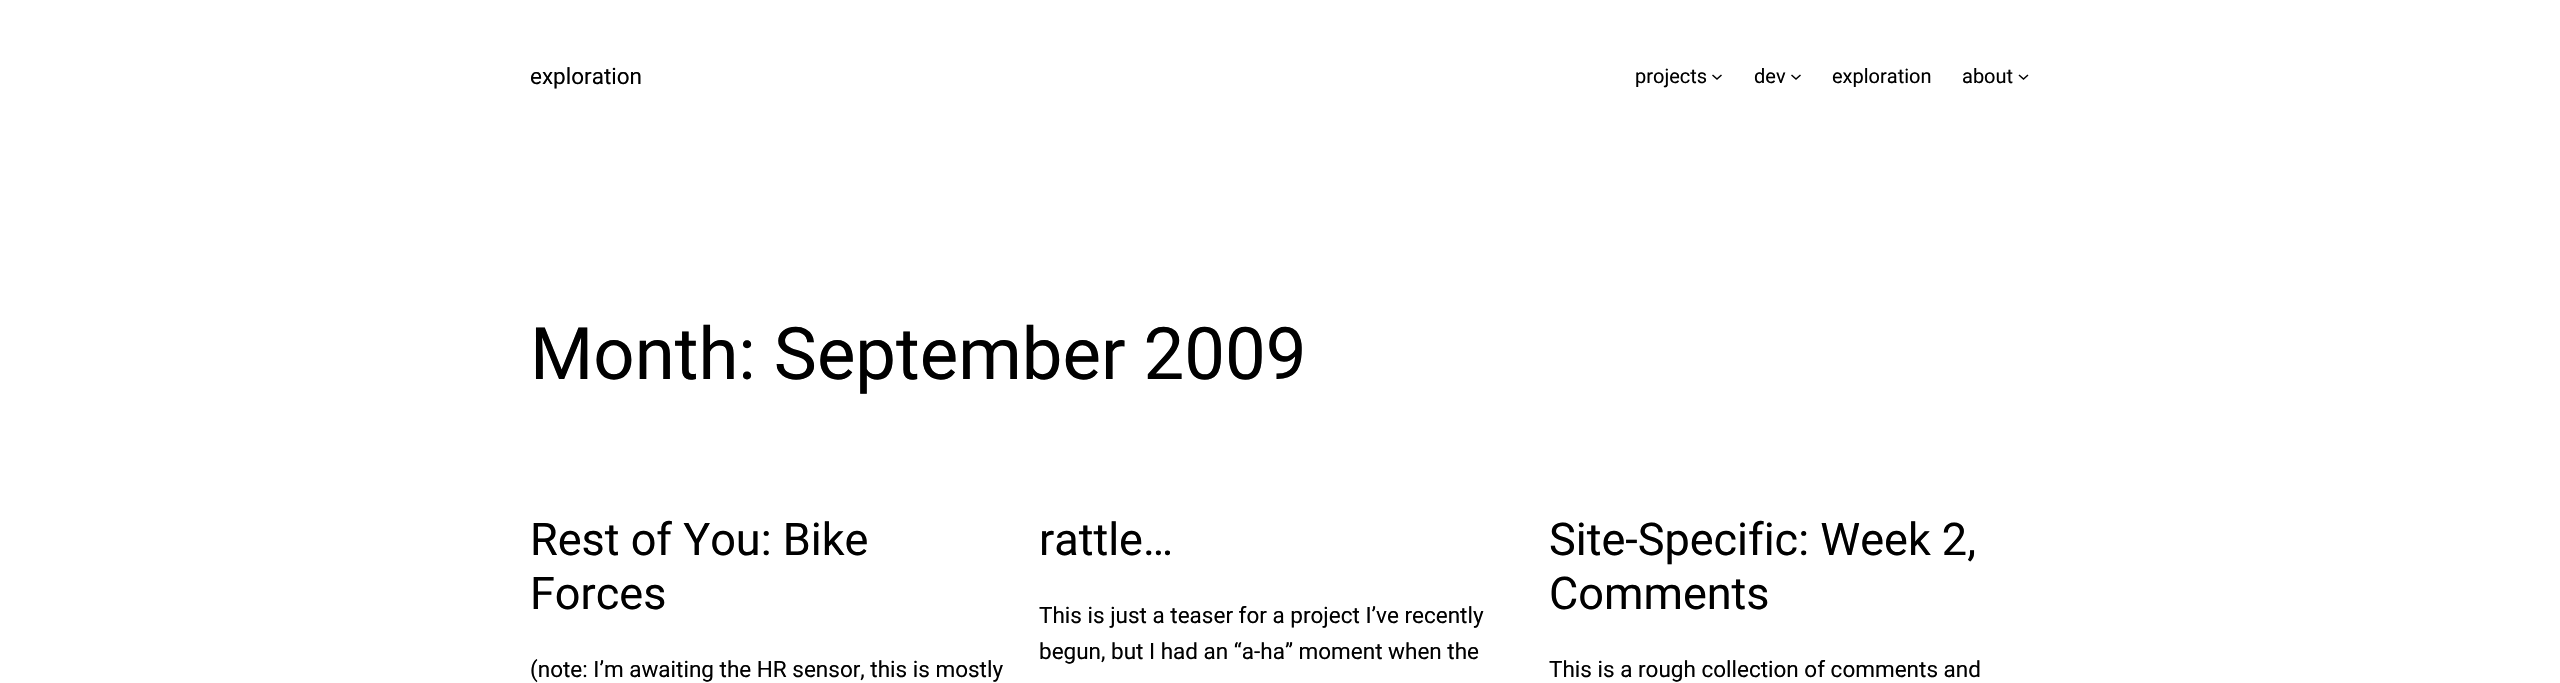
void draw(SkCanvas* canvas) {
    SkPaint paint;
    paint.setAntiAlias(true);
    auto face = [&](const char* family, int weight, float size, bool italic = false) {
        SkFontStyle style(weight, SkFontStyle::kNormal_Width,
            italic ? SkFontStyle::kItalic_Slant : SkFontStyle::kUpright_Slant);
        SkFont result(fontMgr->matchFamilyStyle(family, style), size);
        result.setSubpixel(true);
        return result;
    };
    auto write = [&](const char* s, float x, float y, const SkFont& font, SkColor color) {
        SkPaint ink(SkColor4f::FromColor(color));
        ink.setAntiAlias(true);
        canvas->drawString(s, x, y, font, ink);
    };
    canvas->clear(SK_ColorWHITE);
    auto kFont1 = face("Roboto", 400, 22.5f);
    write("exploration", 530, 84, kFont1, SK_ColorBLACK);
    auto kFont2 = face("Roboto", 400, 20);
    write("projects", 1635, 83, kFont2, SK_ColorBLACK);
    paint.setStyle(SkPaint::kStroke_Style);
    paint.setStrokeWidth(1.5f);
    paint.setColor(SK_ColorBLACK);
    canvas->drawPath(SkPathBuilder().moveTo(1712.5f, 75).lineTo(1717, 79).lineTo(1721.5f, 75).detach(), paint);
    write("dev", 1754, 83, kFont2, SK_ColorBLACK);
    canvas->drawPath(SkPathBuilder().moveTo(1791.5f, 75).lineTo(1796, 79).lineTo(1800.5f, 75).detach(), paint);
    write("exploration", 1832, 83, kFont2, SK_ColorBLACK);
    write("about", 1962, 83, kFont2, SK_ColorBLACK);
    canvas->drawPath(SkPathBuilder().moveTo(2019, 75).lineTo(2023.5f, 79).lineTo(2028, 75).detach(), paint);
    auto kFont3 = face("Roboto", 400, 72.5f);
    write("Month: September 2009", 530, 379, kFont3, SK_ColorBLACK);
    auto kFont4 = face("Roboto", 400, 45);
    write("Rest of You: Bike", 530, 555, kFont4, SK_ColorBLACK);
    write("Forces", 530, 609, kFont4, SK_ColorBLACK);
    write("(note: I’m awaiting the HR sensor, this is mostly", 530, 677, kFont1, SK_ColorBLACK);
    write("rattle…", 1039, 555, kFont4, SK_ColorBLACK);
    write("This is just a teaser for a project I’ve recently", 1039, 623, kFont1, SK_ColorBLACK);
    write("begun, but I had an “a-ha” moment when the", 1039, 659, kFont1, SK_ColorBLACK);
    write("Site-Specific: Week 2,", 1549, 555, kFont4, SK_ColorBLACK);
    write("Comments", 1549, 609, kFont4, SK_ColorBLACK);
    write("This is a rough collection of comments and", 1549, 677, kFont1, SK_ColorBLACK);
}
